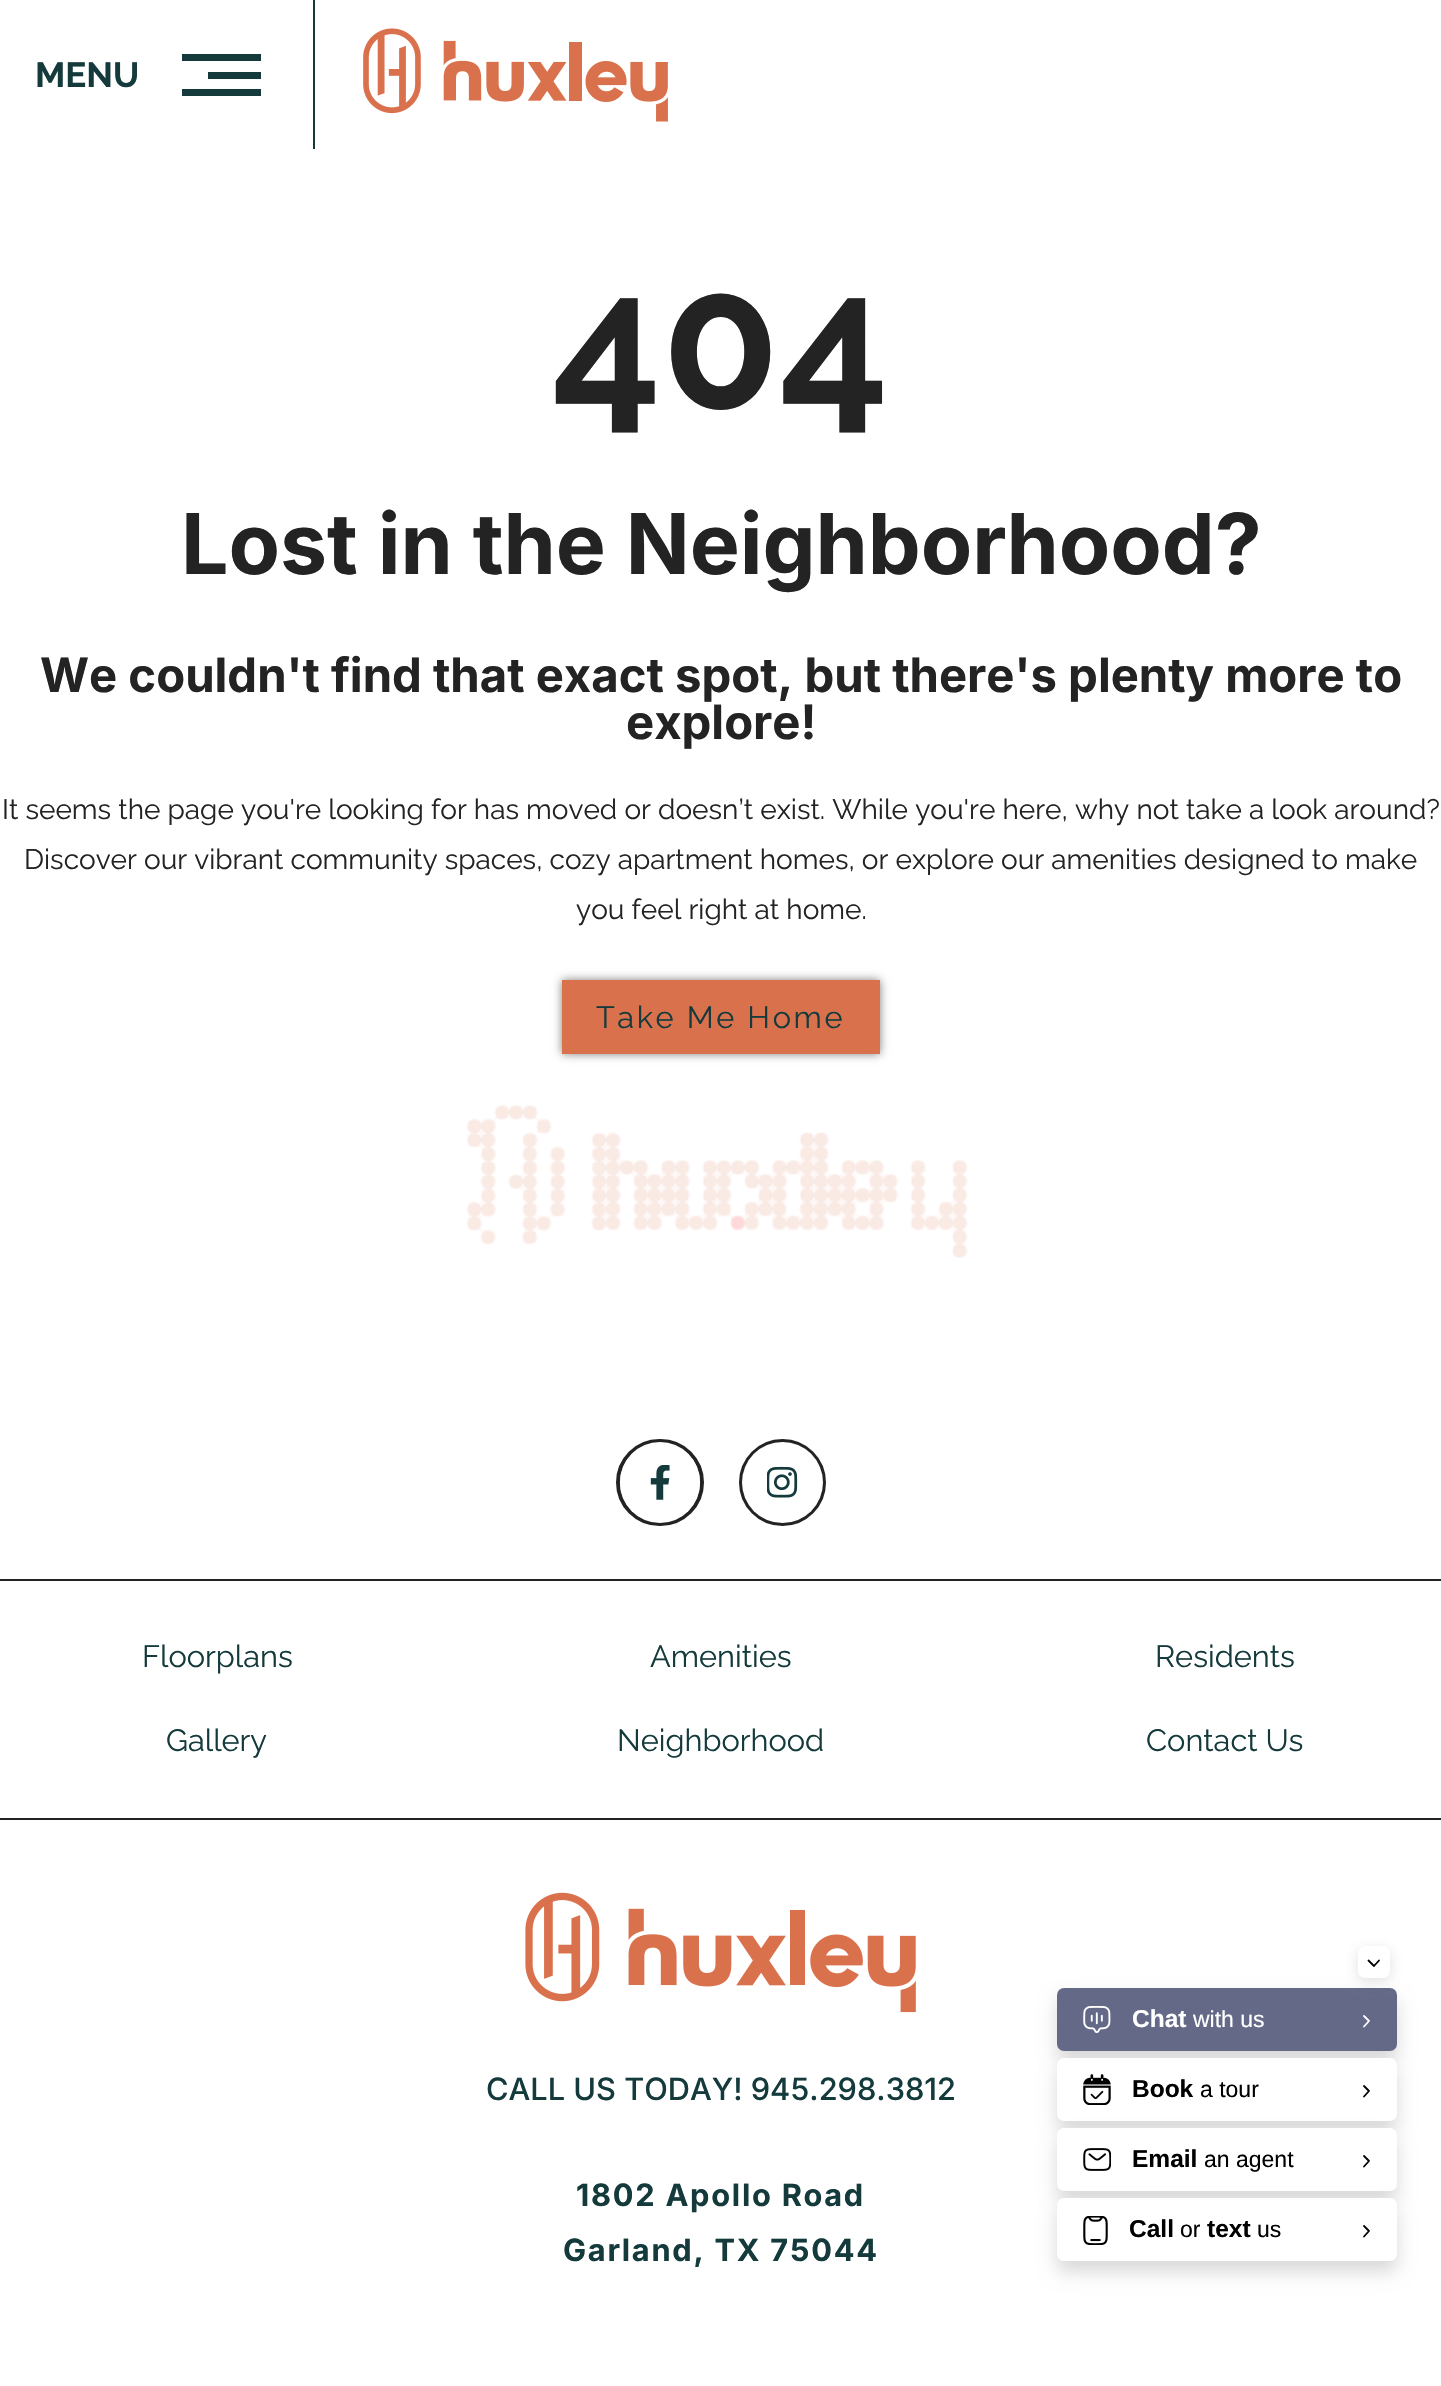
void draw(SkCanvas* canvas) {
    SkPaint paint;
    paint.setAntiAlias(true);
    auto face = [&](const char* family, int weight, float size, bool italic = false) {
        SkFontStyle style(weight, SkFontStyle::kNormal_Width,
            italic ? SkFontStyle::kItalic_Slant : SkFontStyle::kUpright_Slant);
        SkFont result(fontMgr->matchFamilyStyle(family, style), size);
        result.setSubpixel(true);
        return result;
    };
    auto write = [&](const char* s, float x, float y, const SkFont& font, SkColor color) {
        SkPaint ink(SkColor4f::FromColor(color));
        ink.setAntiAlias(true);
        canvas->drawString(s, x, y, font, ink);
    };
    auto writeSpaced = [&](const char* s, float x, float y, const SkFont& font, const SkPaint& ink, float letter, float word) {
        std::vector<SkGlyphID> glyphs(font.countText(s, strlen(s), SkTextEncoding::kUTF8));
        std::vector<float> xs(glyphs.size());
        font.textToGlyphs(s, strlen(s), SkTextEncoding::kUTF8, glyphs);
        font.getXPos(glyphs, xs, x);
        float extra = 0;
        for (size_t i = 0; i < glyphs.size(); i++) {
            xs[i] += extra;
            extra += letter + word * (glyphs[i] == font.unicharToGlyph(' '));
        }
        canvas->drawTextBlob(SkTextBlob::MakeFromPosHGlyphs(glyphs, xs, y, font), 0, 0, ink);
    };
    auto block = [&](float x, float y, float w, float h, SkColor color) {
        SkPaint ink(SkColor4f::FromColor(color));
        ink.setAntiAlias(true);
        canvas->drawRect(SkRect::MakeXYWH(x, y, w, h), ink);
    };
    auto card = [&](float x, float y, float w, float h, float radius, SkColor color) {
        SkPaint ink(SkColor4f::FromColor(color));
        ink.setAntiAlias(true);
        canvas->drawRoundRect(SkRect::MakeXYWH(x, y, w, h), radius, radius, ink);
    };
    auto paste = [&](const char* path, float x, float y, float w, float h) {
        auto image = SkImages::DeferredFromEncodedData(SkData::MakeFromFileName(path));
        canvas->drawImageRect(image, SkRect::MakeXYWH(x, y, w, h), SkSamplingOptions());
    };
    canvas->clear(SK_ColorWHITE);
    block(313, 0, 2, 149, SkColorSetRGB(20, 58, 60));
    block(182, 54, 79, 7, SkColorSetRGB(20, 58, 60));
    auto kFont1 = face("Raleway", 700, 35);
    write("MENU", 35, 87, kFont1, SkColorSetRGB(20, 58, 60));
    block(208, 72, 53, 7, SkColorSetRGB(20, 58, 60));
    block(182, 89, 79, 7, SkColorSetRGB(20, 58, 60));
    paste("pic1.png", 363, 28, 305, 94);
    auto kFont2 = face("Raleway", 700, 192);
    write("404", 552, 408, kFont2, SkColorSetRGB(35, 35, 35));
    auto kFont3 = face("Inter", 700, 84);
    write("Lost in the Neighborhood?", 181, 574, kFont3, SkColorSetRGB(35, 35, 35));
    auto kFont4 = face("Inter", 700, 47.25f);
    write("We couldn't find that exact spot, but there's plenty more to", 40, 692, kFont4, SkColorSetRGB(35, 35, 35));
    write("explore!", 626, 739, kFont4, SkColorSetRGB(35, 35, 35));
    auto kFont5 = face("Raleway", 400, 28);
    write("It seems the page you're looking for has moved or doesn’t exist. While you're here, why not take a look around?", 2, 819, kFont5, SkColorSetRGB(35, 35, 35));
    write("Discover our vibrant community spaces, cozy apartment homes, or explore our amenities designed to make", 24, 869, kFont5, SkColorSetRGB(35, 35, 35));
    write("you feel right at home.", 576, 919, kFont5, SkColorSetRGB(35, 35, 35));
    paint.setColor(SkColorSetARGB(128, 0, 0, 0));
    paint.setMaskFilter(SkMaskFilter::MakeBlur(kNormal_SkBlurStyle, 4.5f));
    canvas->drawRect(SkRect::MakeXYWH(562, 980, 318, 74), paint);
    paint.setMaskFilter(nullptr);
    block(562, 980, 318, 74, SkColorSetRGB(218, 113, 77));
    auto kFont6 = face("Raleway", 400, 30.75f);
    paint.setColor(SkColorSetRGB(20, 58, 60));
    writeSpaced("Take Me Home", 596, 1028, kFont6, paint, 2.6f, 0);
    paste("pic2.png", 466, 1105, 502, 153);
    paint.setStyle(SkPaint::kStroke_Style);
    paint.setStrokeWidth(4);
    paint.setColor(SkColorSetRGB(35, 35, 35));
    canvas->drawRoundRect(SkRect::MakeXYWH(618, 1441, 84, 83), 41.5f, 41.5f, paint);
    card(620, 1442, 80, 81, 40, SK_ColorWHITE);
    paste("pic3.png", 650, 1465, 20, 35);
    canvas->drawCircle(782.5f, 1482.5f, 41.5f, paint);
    paint.setStyle(SkPaint::kFill_Style);
    paint.setColor(SK_ColorWHITE);
    canvas->drawCircle(782.5f, 1482.5f, 40.5f, paint);
    paste("pic4.png", 767, 1466, 31, 32);
    block(0, 1579, 1441, 2, SkColorSetRGB(35, 35, 35));
    block(0, 1818, 1441, 2, SkColorSetRGB(35, 35, 35));
    write("Floorplans", 142, 1667, kFont6, SkColorSetRGB(20, 58, 60));
    write("Amenities", 650, 1667, kFont6, SkColorSetRGB(20, 58, 60));
    write("Residents", 1155, 1667, kFont6, SkColorSetRGB(20, 58, 60));
    write("Gallery", 166, 1751, kFont6, SkColorSetRGB(20, 58, 60));
    write("Neighborhood", 617, 1751, kFont6, SkColorSetRGB(20, 58, 60));
    write("Contact Us", 1146, 1751, kFont6, SkColorSetRGB(20, 58, 60));
    paste("pic5.png", 525, 1892, 391, 121);
    auto kFont7 = face("Inter", 500, 30.75f);
    write("CALL US TODAY! 945.298.3812", 486, 2100, kFont7, SkColorSetRGB(20, 58, 60));
    auto kFont8 = face("Inter", 700, 30.75f);
    paint.setColor(SkColorSetRGB(20, 58, 60));
    writeSpaced("1802 Apollo Road", 576, 2206, kFont8, paint, 1.75f, 0);
    writeSpaced("Garland, TX 75044", 563, 2261, kFont8, paint, 1.75f, 0);
    paint.setColor(SkColorSetARGB(38, 0, 0, 0));
    paint.setMaskFilter(SkMaskFilter::MakeBlur(kNormal_SkBlurStyle, 9));
    canvas->drawRoundRect(SkRect::MakeXYWH(1057, 1999, 340, 63), 7, 7, paint);
    paint.setMaskFilter(nullptr);
    card(1057, 1988, 340, 63, 7, SkColorSetRGB(100, 105, 135));
    paint.setColor(SkColorSetARGB(51, 99, 99, 99));
    paint.setMaskFilter(SkMaskFilter::MakeBlur(kNormal_SkBlurStyle, 7));
    canvas->drawRoundRect(SkRect::MakeXYWH(1358, 1950, 32, 31), 7, 7, paint);
    paint.setMaskFilter(nullptr);
    card(1358, 1946, 32, 32, 7, SK_ColorWHITE);
    paint.setStyle(SkPaint::kStroke_Style);
    paint.setStrokeWidth(1.8f);
    paint.setStrokeCap(SkPaint::kRound_Cap);
    paint.setStrokeJoin(SkPaint::kRound_Join);
    paint.setColor(SK_ColorBLACK);
    canvas->drawPath(SkPathBuilder().moveTo(1368.5f, 1960.5f).lineTo(1374, 1966).lineTo(1379, 1960.5f).detach(), paint);
    paste("pic6.png", 1083, 2006, 28, 28);
    auto kFont9 = face("Liberation Sans", 700, 24.5f);
    write("Chat", 1132, 2027, kFont9, SK_ColorWHITE);
    auto kFont10 = face("Liberation Sans", 400, 23);
    write("with us", 1193, 2027, kFont10, SK_ColorWHITE);
    paint.setColor(SK_ColorWHITE);
    canvas->drawPath(SkPathBuilder().moveTo(1364, 2026.5f).lineTo(1369, 2021).lineTo(1364, 2016).detach(), paint);
    paint.setStyle(SkPaint::kFill_Style);
    paint.setColor(SkColorSetARGB(38, 0, 0, 0));
    paint.setMaskFilter(SkMaskFilter::MakeBlur(kNormal_SkBlurStyle, 9));
    canvas->drawRoundRect(SkRect::MakeXYWH(1057, 2069, 340, 63), 7, 7, paint);
    paint.setMaskFilter(nullptr);
    card(1057, 2058, 340, 63, 7, SK_ColorWHITE);
    paste("pic7.png", 1083, 2074, 28, 31);
    write("Book", 1132, 2097, kFont9, SK_ColorBLACK);
    write("a tour", 1200, 2097, kFont10, SK_ColorBLACK);
    paint.setStyle(SkPaint::kStroke_Style);
    paint.setColor(SK_ColorBLACK);
    canvas->drawPath(SkPathBuilder().moveTo(1364, 2096.5f).lineTo(1369, 2091).lineTo(1364, 2086).detach(), paint);
    paint.setStyle(SkPaint::kFill_Style);
    paint.setColor(SkColorSetARGB(38, 0, 0, 0));
    paint.setMaskFilter(SkMaskFilter::MakeBlur(kNormal_SkBlurStyle, 9));
    canvas->drawRoundRect(SkRect::MakeXYWH(1057, 2139, 340, 63), 7, 7, paint);
    paint.setMaskFilter(nullptr);
    card(1057, 2128, 340, 63, 7, SK_ColorWHITE);
    paste("pic8.png", 1083, 2148, 28, 23);
    write("Email", 1132, 2167, kFont9, SK_ColorBLACK);
    write("an agent", 1204, 2167, kFont10, SK_ColorBLACK);
    paint.setStyle(SkPaint::kStroke_Style);
    paint.setColor(SK_ColorBLACK);
    canvas->drawPath(SkPathBuilder().moveTo(1364, 2166.5f).lineTo(1369, 2161).lineTo(1364, 2156).detach(), paint);
    paint.setStyle(SkPaint::kFill_Style);
    paint.setColor(SkColorSetARGB(38, 0, 0, 0));
    paint.setMaskFilter(SkMaskFilter::MakeBlur(kNormal_SkBlurStyle, 9));
    canvas->drawRoundRect(SkRect::MakeXYWH(1057, 2209, 340, 63), 7, 7, paint);
    paint.setMaskFilter(nullptr);
    card(1057, 2198, 340, 63, 7, SK_ColorWHITE);
    paste("pic9.png", 1083, 2216, 25, 29);
    write("Call", 1129, 2237, kFont9, SK_ColorBLACK);
    write("or", 1180, 2237, kFont10, SK_ColorBLACK);
    write("text", 1207, 2237, kFont9, SK_ColorBLACK);
    write("us", 1257, 2237, kFont10, SK_ColorBLACK);
    paint.setStyle(SkPaint::kStroke_Style);
    paint.setColor(SK_ColorBLACK);
    canvas->drawPath(SkPathBuilder().moveTo(1364, 2236.5f).lineTo(1369, 2231).lineTo(1364, 2226).detach(), paint);
}
